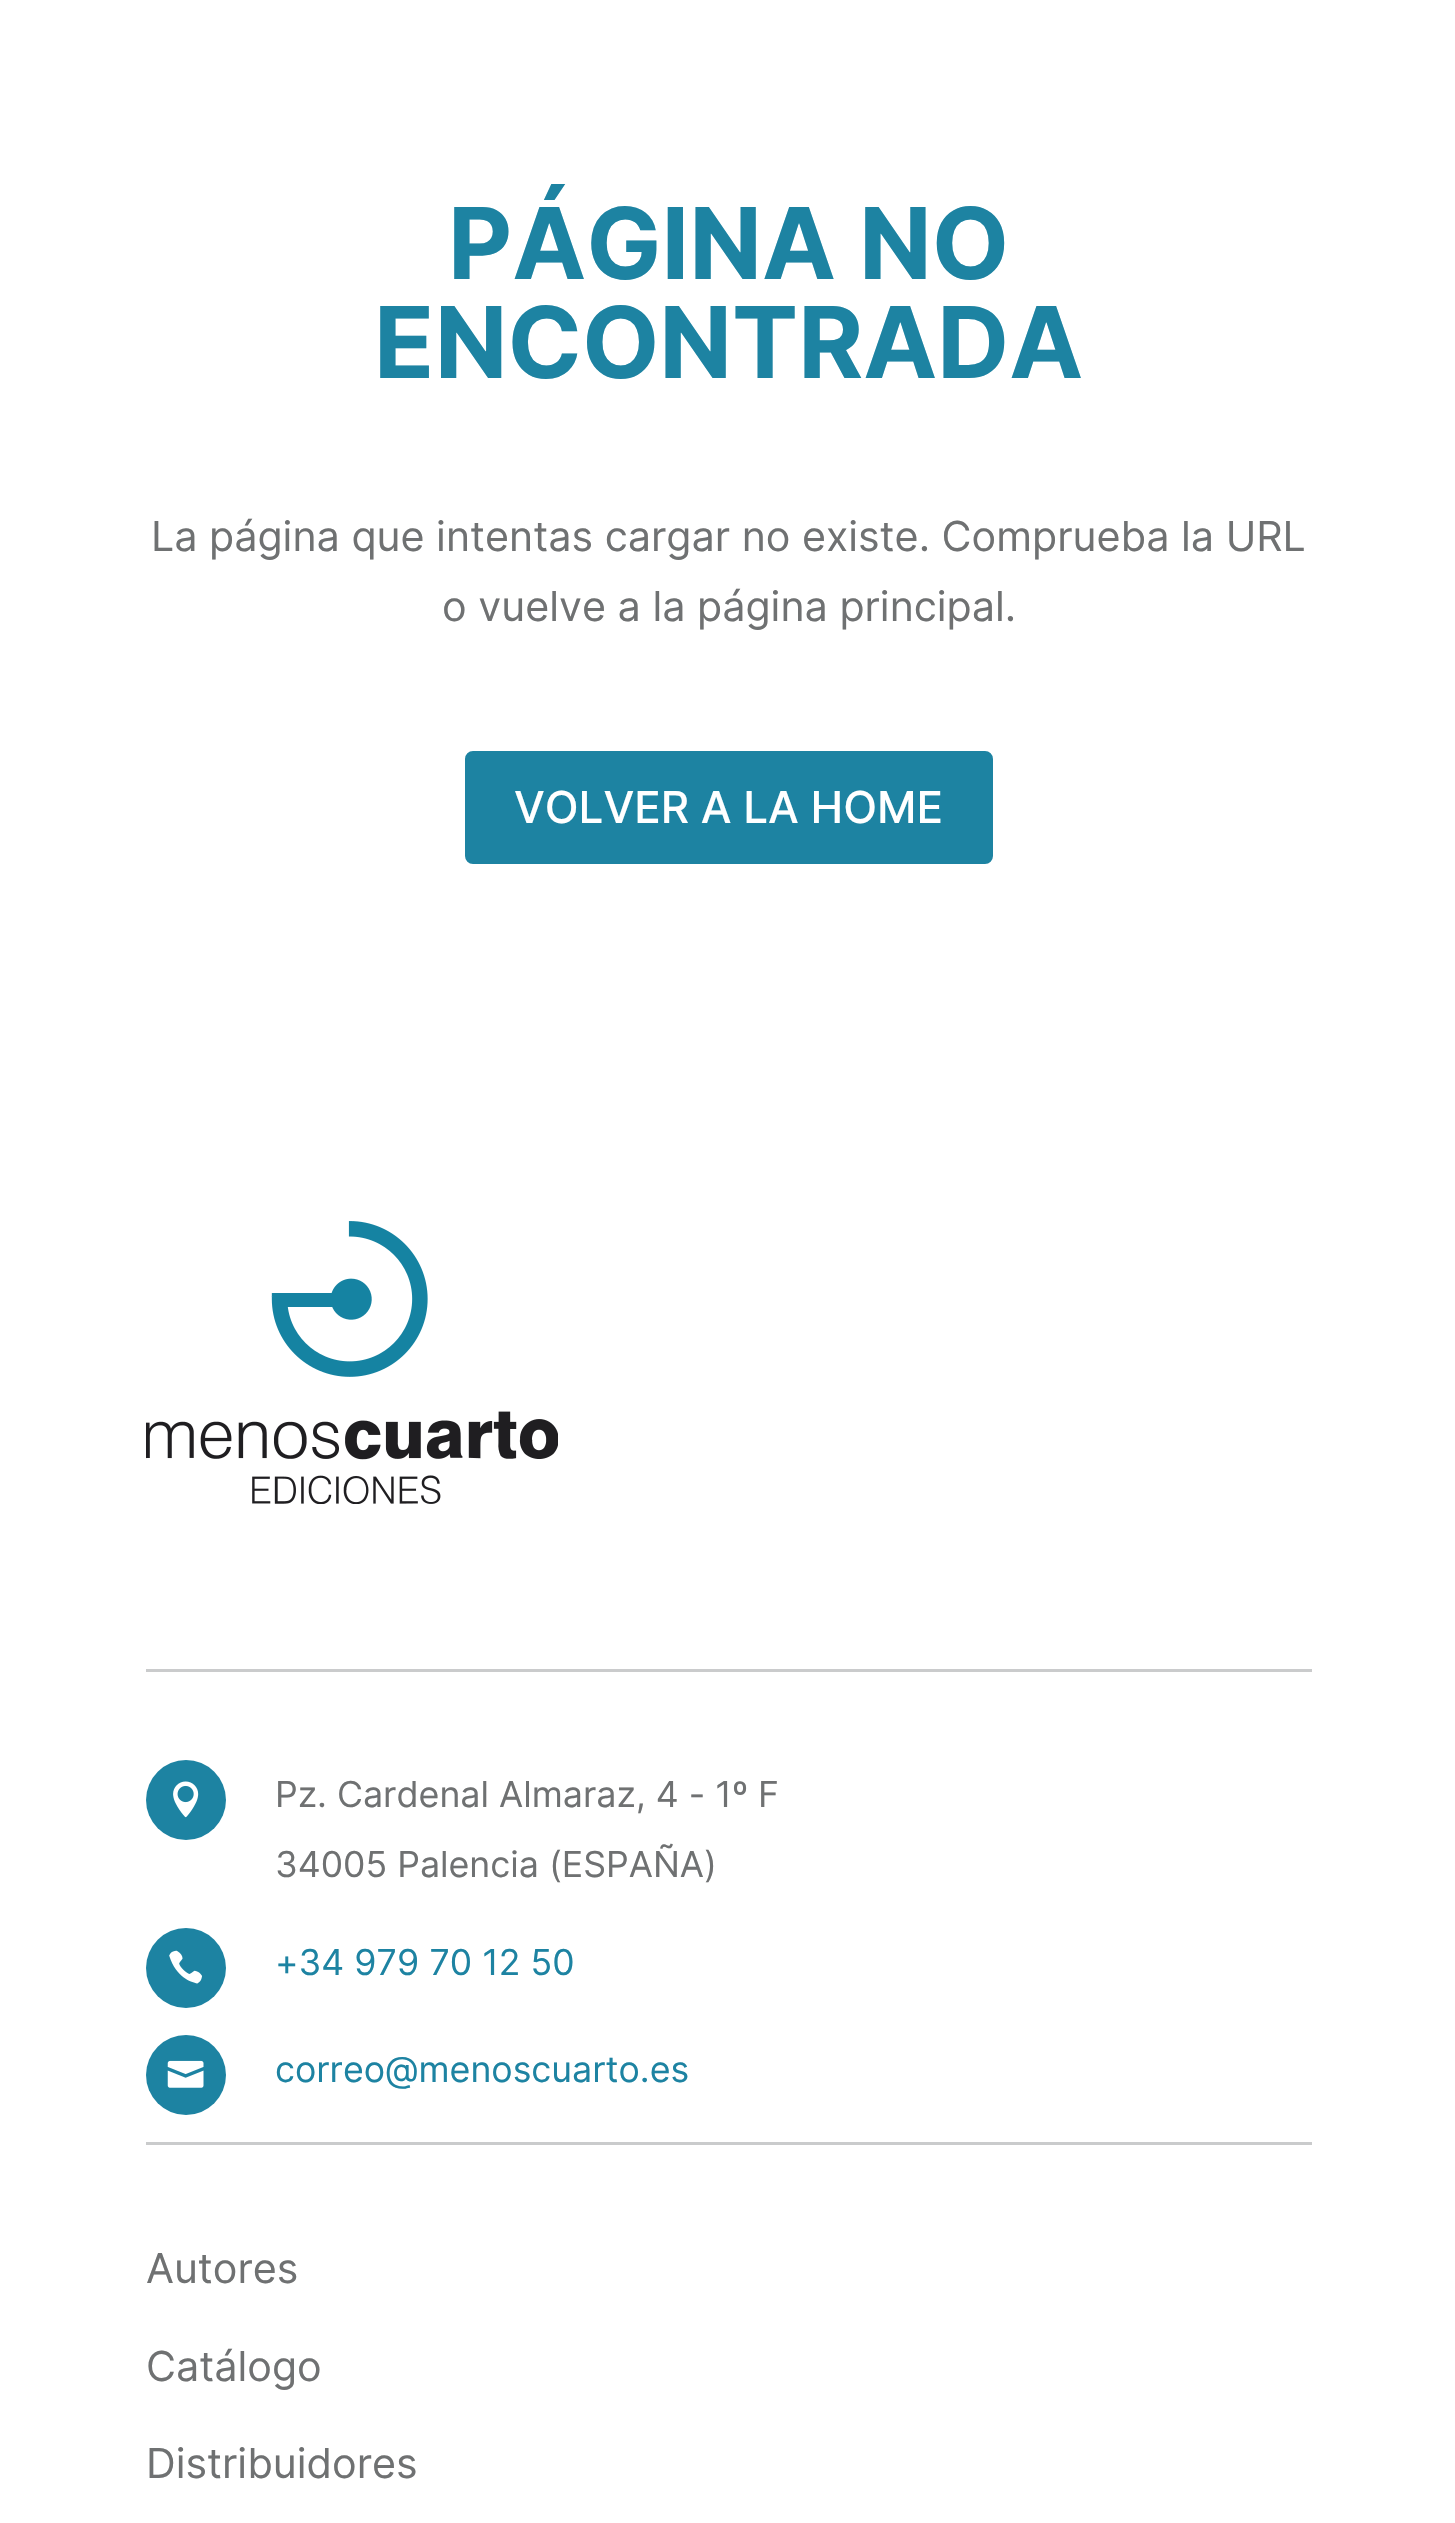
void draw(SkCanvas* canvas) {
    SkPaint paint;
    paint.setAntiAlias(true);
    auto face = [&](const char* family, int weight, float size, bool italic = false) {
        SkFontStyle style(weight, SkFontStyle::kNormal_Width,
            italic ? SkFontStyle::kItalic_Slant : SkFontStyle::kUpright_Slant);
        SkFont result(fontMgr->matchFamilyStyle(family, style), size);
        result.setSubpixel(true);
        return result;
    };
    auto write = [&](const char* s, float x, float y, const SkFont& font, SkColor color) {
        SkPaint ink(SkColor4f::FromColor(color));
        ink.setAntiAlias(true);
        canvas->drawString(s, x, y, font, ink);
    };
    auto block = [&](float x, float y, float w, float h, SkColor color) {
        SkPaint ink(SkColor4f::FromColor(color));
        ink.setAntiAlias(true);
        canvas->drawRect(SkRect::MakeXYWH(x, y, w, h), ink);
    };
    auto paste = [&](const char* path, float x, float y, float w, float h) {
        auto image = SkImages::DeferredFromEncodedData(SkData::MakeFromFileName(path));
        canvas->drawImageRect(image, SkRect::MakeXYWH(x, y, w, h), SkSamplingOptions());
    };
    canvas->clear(SK_ColorWHITE);
    auto kFont1 = face("Inter", 700, 99);
    write("PÁGINA NO", 448, 279, kFont1, SkColorSetRGB(29, 131, 162));
    write("ENCONTRADA", 374, 378, kFont1, SkColorSetRGB(29, 131, 162));
    auto kFont2 = face("Inter", 400, 41.25f);
    write("La página que intentas cargar no existe. Comprueba la URL", 151, 551, kFont2, SkColorSetRGB(111, 113, 114));
    write("o vuelve a la página principal.", 442, 621, kFont2, SkColorSetRGB(111, 113, 114));
    paint.setColor(SkColorSetRGB(29, 131, 162));
    canvas->drawRoundRect(SkRect::MakeXYWH(468, 754, 522, 107), 5, 5, paint);
    paint.setStyle(SkPaint::kStroke_Style);
    paint.setStrokeWidth(6);
    canvas->drawRoundRect(SkRect::MakeXYWH(468, 754, 522, 107), 5, 5, paint);
    auto kFont3 = face("Inter", 500, 44);
    write("VOLVER A LA HOME", 514, 823, kFont3, SK_ColorWHITE);
    paste("pic1.png", 146, 1221, 412, 283);
    block(146, 1669, 1166, 3, SkColorSetRGB(202, 203, 204));
    paint.setStyle(SkPaint::kFill_Style);
    canvas->drawCircle(186, 1800, 40, paint);
    paste("pic2.png", 173, 1781, 26, 37);
    auto kFont4 = face("Inter", 400, 35.75f);
    write("Pz. Cardenal Almaraz, 4 - 1º F", 275, 1807, kFont4, SkColorSetRGB(111, 113, 114));
    write("34005 Palencia (ESPAÑA)", 275, 1877, kFont4, SkColorSetRGB(111, 113, 114));
    canvas->drawCircle(186, 1968, 40, paint);
    paste("pic3.png", 169, 1950, 33, 34);
    write("+34 979 70 12 50", 275, 1975, kFont4, SkColorSetRGB(29, 131, 162));
    canvas->drawCircle(186, 2075, 40, paint);
    paste("pic4.png", 167, 2060, 37, 28);
    write("correo@menoscuarto.es", 275, 2082, kFont4, SkColorSetRGB(29, 131, 162));
    block(146, 2142, 1166, 3, SkColorSetRGB(202, 203, 204));
    write("Autores", 146, 2283, kFont2, SkColorSetRGB(111, 113, 114));
    write("Catálogo", 146, 2381, kFont2, SkColorSetRGB(111, 113, 114));
    write("Distribuidores", 146, 2478, kFont2, SkColorSetRGB(111, 113, 114));
}
